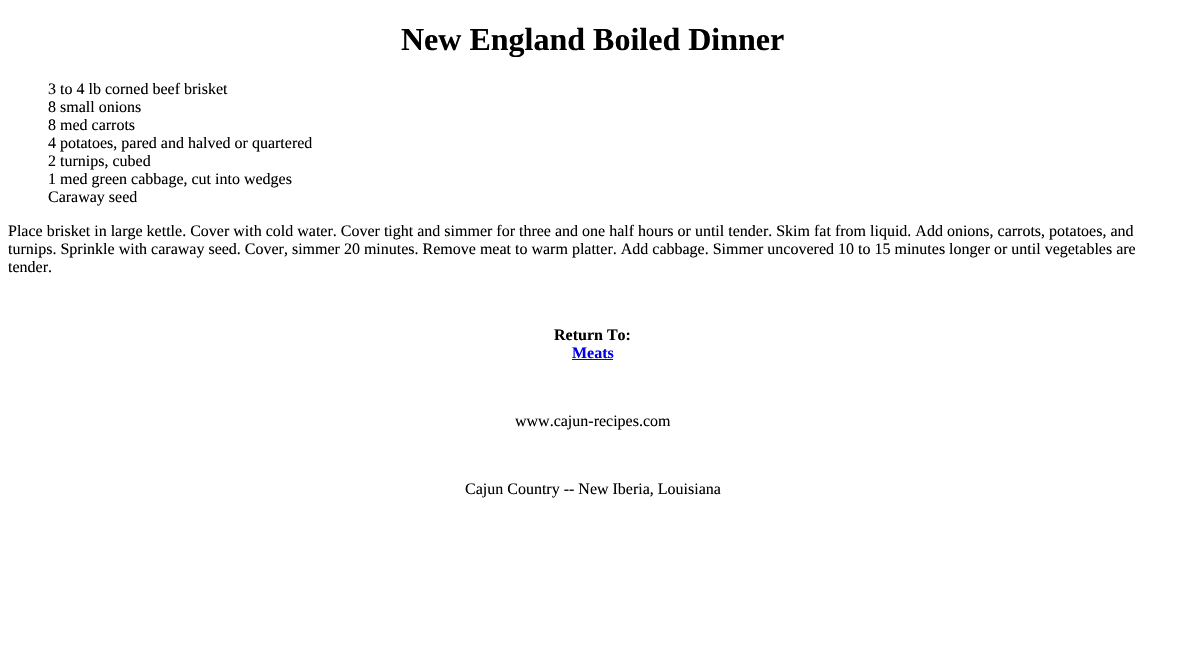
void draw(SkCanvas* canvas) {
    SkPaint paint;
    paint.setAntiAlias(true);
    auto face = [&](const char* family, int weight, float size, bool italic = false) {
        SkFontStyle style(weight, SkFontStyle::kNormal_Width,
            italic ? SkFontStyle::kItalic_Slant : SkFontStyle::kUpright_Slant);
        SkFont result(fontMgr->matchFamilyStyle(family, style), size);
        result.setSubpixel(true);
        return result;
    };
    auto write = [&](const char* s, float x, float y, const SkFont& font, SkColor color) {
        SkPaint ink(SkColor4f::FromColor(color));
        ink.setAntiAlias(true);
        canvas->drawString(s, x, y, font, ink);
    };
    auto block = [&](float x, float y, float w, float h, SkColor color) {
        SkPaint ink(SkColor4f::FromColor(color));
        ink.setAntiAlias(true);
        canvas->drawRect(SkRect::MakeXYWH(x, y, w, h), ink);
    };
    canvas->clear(SK_ColorWHITE);
    auto kFont1 = face("Liberation Serif", 700, 32);
    write("New England Boiled Dinner", 401, 50, kFont1, SK_ColorBLACK);
    auto kFont2 = face("Liberation Serif", 400, 16);
    write("3 to 4 lb corned beef brisket", 48, 94, kFont2, SK_ColorBLACK);
    write("8 small onions", 48, 112, kFont2, SK_ColorBLACK);
    write("8 med carrots", 48, 130, kFont2, SK_ColorBLACK);
    write("4 potatoes, pared and halved or quartered", 48, 148, kFont2, SK_ColorBLACK);
    write("2 turnips, cubed", 48, 166, kFont2, SK_ColorBLACK);
    write("1 med green cabbage, cut into wedges", 48, 184, kFont2, SK_ColorBLACK);
    write("Caraway seed", 48, 202, kFont2, SK_ColorBLACK);
    write("Place brisket in large kettle. Cover with cold water. Cover tight and simmer for three and one half hours or until tender. Skim fat from liquid. Add onions, carrots, potatoes, and", 8, 236, kFont2, SK_ColorBLACK);
    write("turnips. Sprinkle with caraway seed. Cover, simmer 20 minutes. Remove meat to warm platter. Add cabbage. Simmer uncovered 10 to 15 minutes longer or until vegetables are", 8, 254, kFont2, SK_ColorBLACK);
    write("tender.", 8, 272, kFont2, SK_ColorBLACK);
    auto kFont3 = face("Liberation Serif", 700, 16);
    write("Return To:", 554, 340, kFont3, SK_ColorBLACK);
    write("Meats", 572, 358, kFont3, SkColorSetRGB(0, 0, 238));
    block(572, 359, 41, 1, SkColorSetRGB(0, 0, 238));
    write("www.cajun-recipes.com", 515, 426, kFont2, SK_ColorBLACK);
    write("Cajun Country -- New Iberia, Louisiana", 465, 494, kFont2, SK_ColorBLACK);
}
